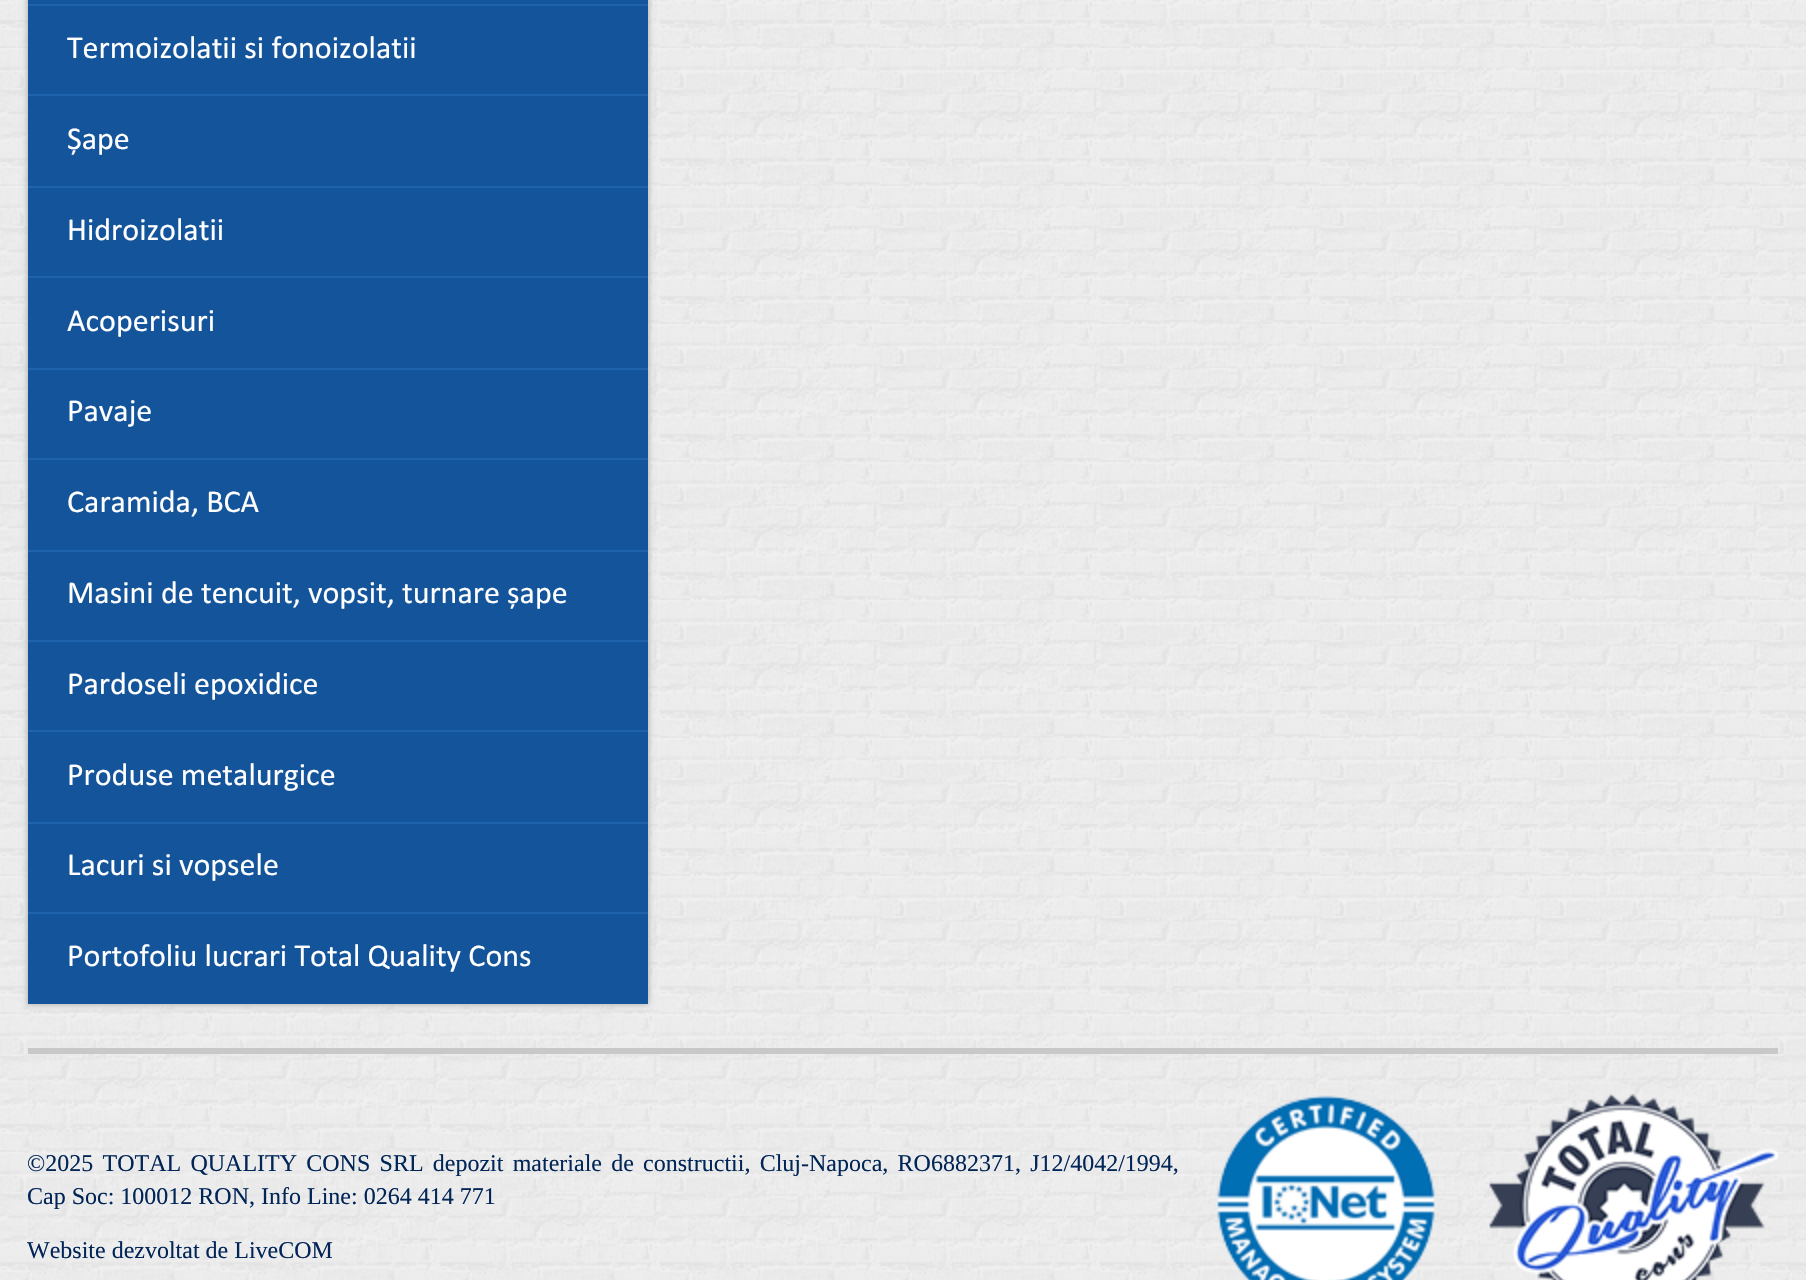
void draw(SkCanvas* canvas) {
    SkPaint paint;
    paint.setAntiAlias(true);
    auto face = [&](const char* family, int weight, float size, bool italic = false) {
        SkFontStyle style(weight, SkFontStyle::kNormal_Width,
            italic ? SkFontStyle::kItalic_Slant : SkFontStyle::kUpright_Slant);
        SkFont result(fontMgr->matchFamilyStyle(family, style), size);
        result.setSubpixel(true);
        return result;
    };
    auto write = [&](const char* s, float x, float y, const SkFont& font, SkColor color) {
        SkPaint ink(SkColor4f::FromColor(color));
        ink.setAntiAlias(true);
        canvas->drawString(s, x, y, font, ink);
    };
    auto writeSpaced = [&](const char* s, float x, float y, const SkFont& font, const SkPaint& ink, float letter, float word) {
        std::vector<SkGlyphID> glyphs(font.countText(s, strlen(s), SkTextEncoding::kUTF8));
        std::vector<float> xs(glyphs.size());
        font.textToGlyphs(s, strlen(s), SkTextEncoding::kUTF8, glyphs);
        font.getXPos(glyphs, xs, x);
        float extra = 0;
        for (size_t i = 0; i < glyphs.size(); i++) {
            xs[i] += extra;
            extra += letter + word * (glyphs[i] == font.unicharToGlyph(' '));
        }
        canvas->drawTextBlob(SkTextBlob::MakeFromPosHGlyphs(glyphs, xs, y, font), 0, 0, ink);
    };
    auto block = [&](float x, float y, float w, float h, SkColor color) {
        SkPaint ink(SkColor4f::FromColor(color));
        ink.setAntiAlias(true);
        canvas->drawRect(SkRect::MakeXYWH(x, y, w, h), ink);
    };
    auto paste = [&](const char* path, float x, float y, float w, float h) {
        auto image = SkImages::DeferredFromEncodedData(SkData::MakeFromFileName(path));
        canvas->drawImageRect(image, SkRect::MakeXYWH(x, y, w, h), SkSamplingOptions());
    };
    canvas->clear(SK_ColorWHITE);
    paste("pic1.png", 0, 0, 1806, 1280);
    paint.setColor(SkColorSetRGB(192, 192, 192));
    paint.setMaskFilter(SkMaskFilter::MakeBlur(kNormal_SkBlurStyle, 3));
    canvas->drawRect(SkRect::MakeXYWH(28, -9, 620, 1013), paint);
    paint.setMaskFilter(nullptr);
    block(28, 0, 620, 1004, SkColorSetRGB(20, 84, 155));
    canvas->save();
    canvas->clipPath(SkPathBuilder(SkPathFillType::kEvenOdd).moveTo(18, 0).lineTo(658, 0).lineTo(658, 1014).lineTo(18, 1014).close().moveTo(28, -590).lineTo(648, -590).lineTo(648, 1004).lineTo(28, 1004).close().detach(), true);
    paint.setMaskFilter(SkMaskFilter::MakeBlur(kNormal_SkBlurStyle, 3));
    canvas->drawRect(SkRect::MakeXYWH(28, -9, 620, 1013), paint);
    paint.setMaskFilter(nullptr);
    canvas->restore();
    block(28, 4, 620, 2, SkColorSetRGB(32, 99, 173));
    block(28, 94, 620, 2, SkColorSetRGB(32, 99, 173));
    auto kFont1 = face("Calibri", 400, 32);
    write("Termoizolatii si fonoizolatii", 67, 58, kFont1, SK_ColorWHITE);
    block(28, 186, 620, 2, SkColorSetRGB(32, 99, 173));
    write("Șape", 67, 149, kFont1, SK_ColorWHITE);
    block(28, 276, 620, 2, SkColorSetRGB(32, 99, 173));
    write("Hidroizolatii", 67, 240, kFont1, SK_ColorWHITE);
    block(28, 368, 620, 2, SkColorSetRGB(32, 99, 173));
    write("Acoperisuri", 67, 331, kFont1, SK_ColorWHITE);
    block(28, 458, 620, 2, SkColorSetRGB(32, 99, 173));
    write("Pavaje", 67, 421, kFont1, SK_ColorWHITE);
    block(28, 550, 620, 2, SkColorSetRGB(32, 99, 173));
    write("Caramida, BCA", 67, 512, kFont1, SK_ColorWHITE);
    block(28, 640, 620, 2, SkColorSetRGB(32, 99, 173));
    write("Masini de tencuit, vopsit, turnare șape", 67, 603, kFont1, SK_ColorWHITE);
    block(28, 730, 620, 2, SkColorSetRGB(32, 99, 173));
    write("Pardoseli epoxidice", 67, 694, kFont1, SK_ColorWHITE);
    block(28, 822, 620, 2, SkColorSetRGB(32, 99, 173));
    write("Produse metalurgice", 67, 785, kFont1, SK_ColorWHITE);
    block(28, 912, 620, 2, SkColorSetRGB(32, 99, 173));
    write("Lacuri si vopsele", 67, 875, kFont1, SK_ColorWHITE);
    write("Portofoliu lucrari Total Quality Cons", 67, 966, kFont1, SK_ColorWHITE);
    block(28, 1048, 1750, 6, SkColorSetRGB(200, 200, 200));
    auto kFont2 = face("Liberation Serif", 400, 24);
    paint.setColor(SkColorSetRGB(1, 37, 87));
    writeSpaced("©2025 TOTAL QUALITY CONS SRL depozit materiale de constructii, Cluj-Napoca, RO6882371, J12/4042/1994,", 27, 1171, kFont2, paint, 0, 3.25f);
    write("Cap Soc: 100012 RON, Info Line: 0264 414 771", 27, 1204, kFont2, SkColorSetRGB(1, 37, 87));
    paste("pic2.png", 1217, 1095, 218, 185);
    paste("pic3.png", 1489, 1094, 289, 186);
    write("Website dezvoltat de LiveCOM", 27, 1258, kFont2, SkColorSetRGB(1, 37, 87));
}
